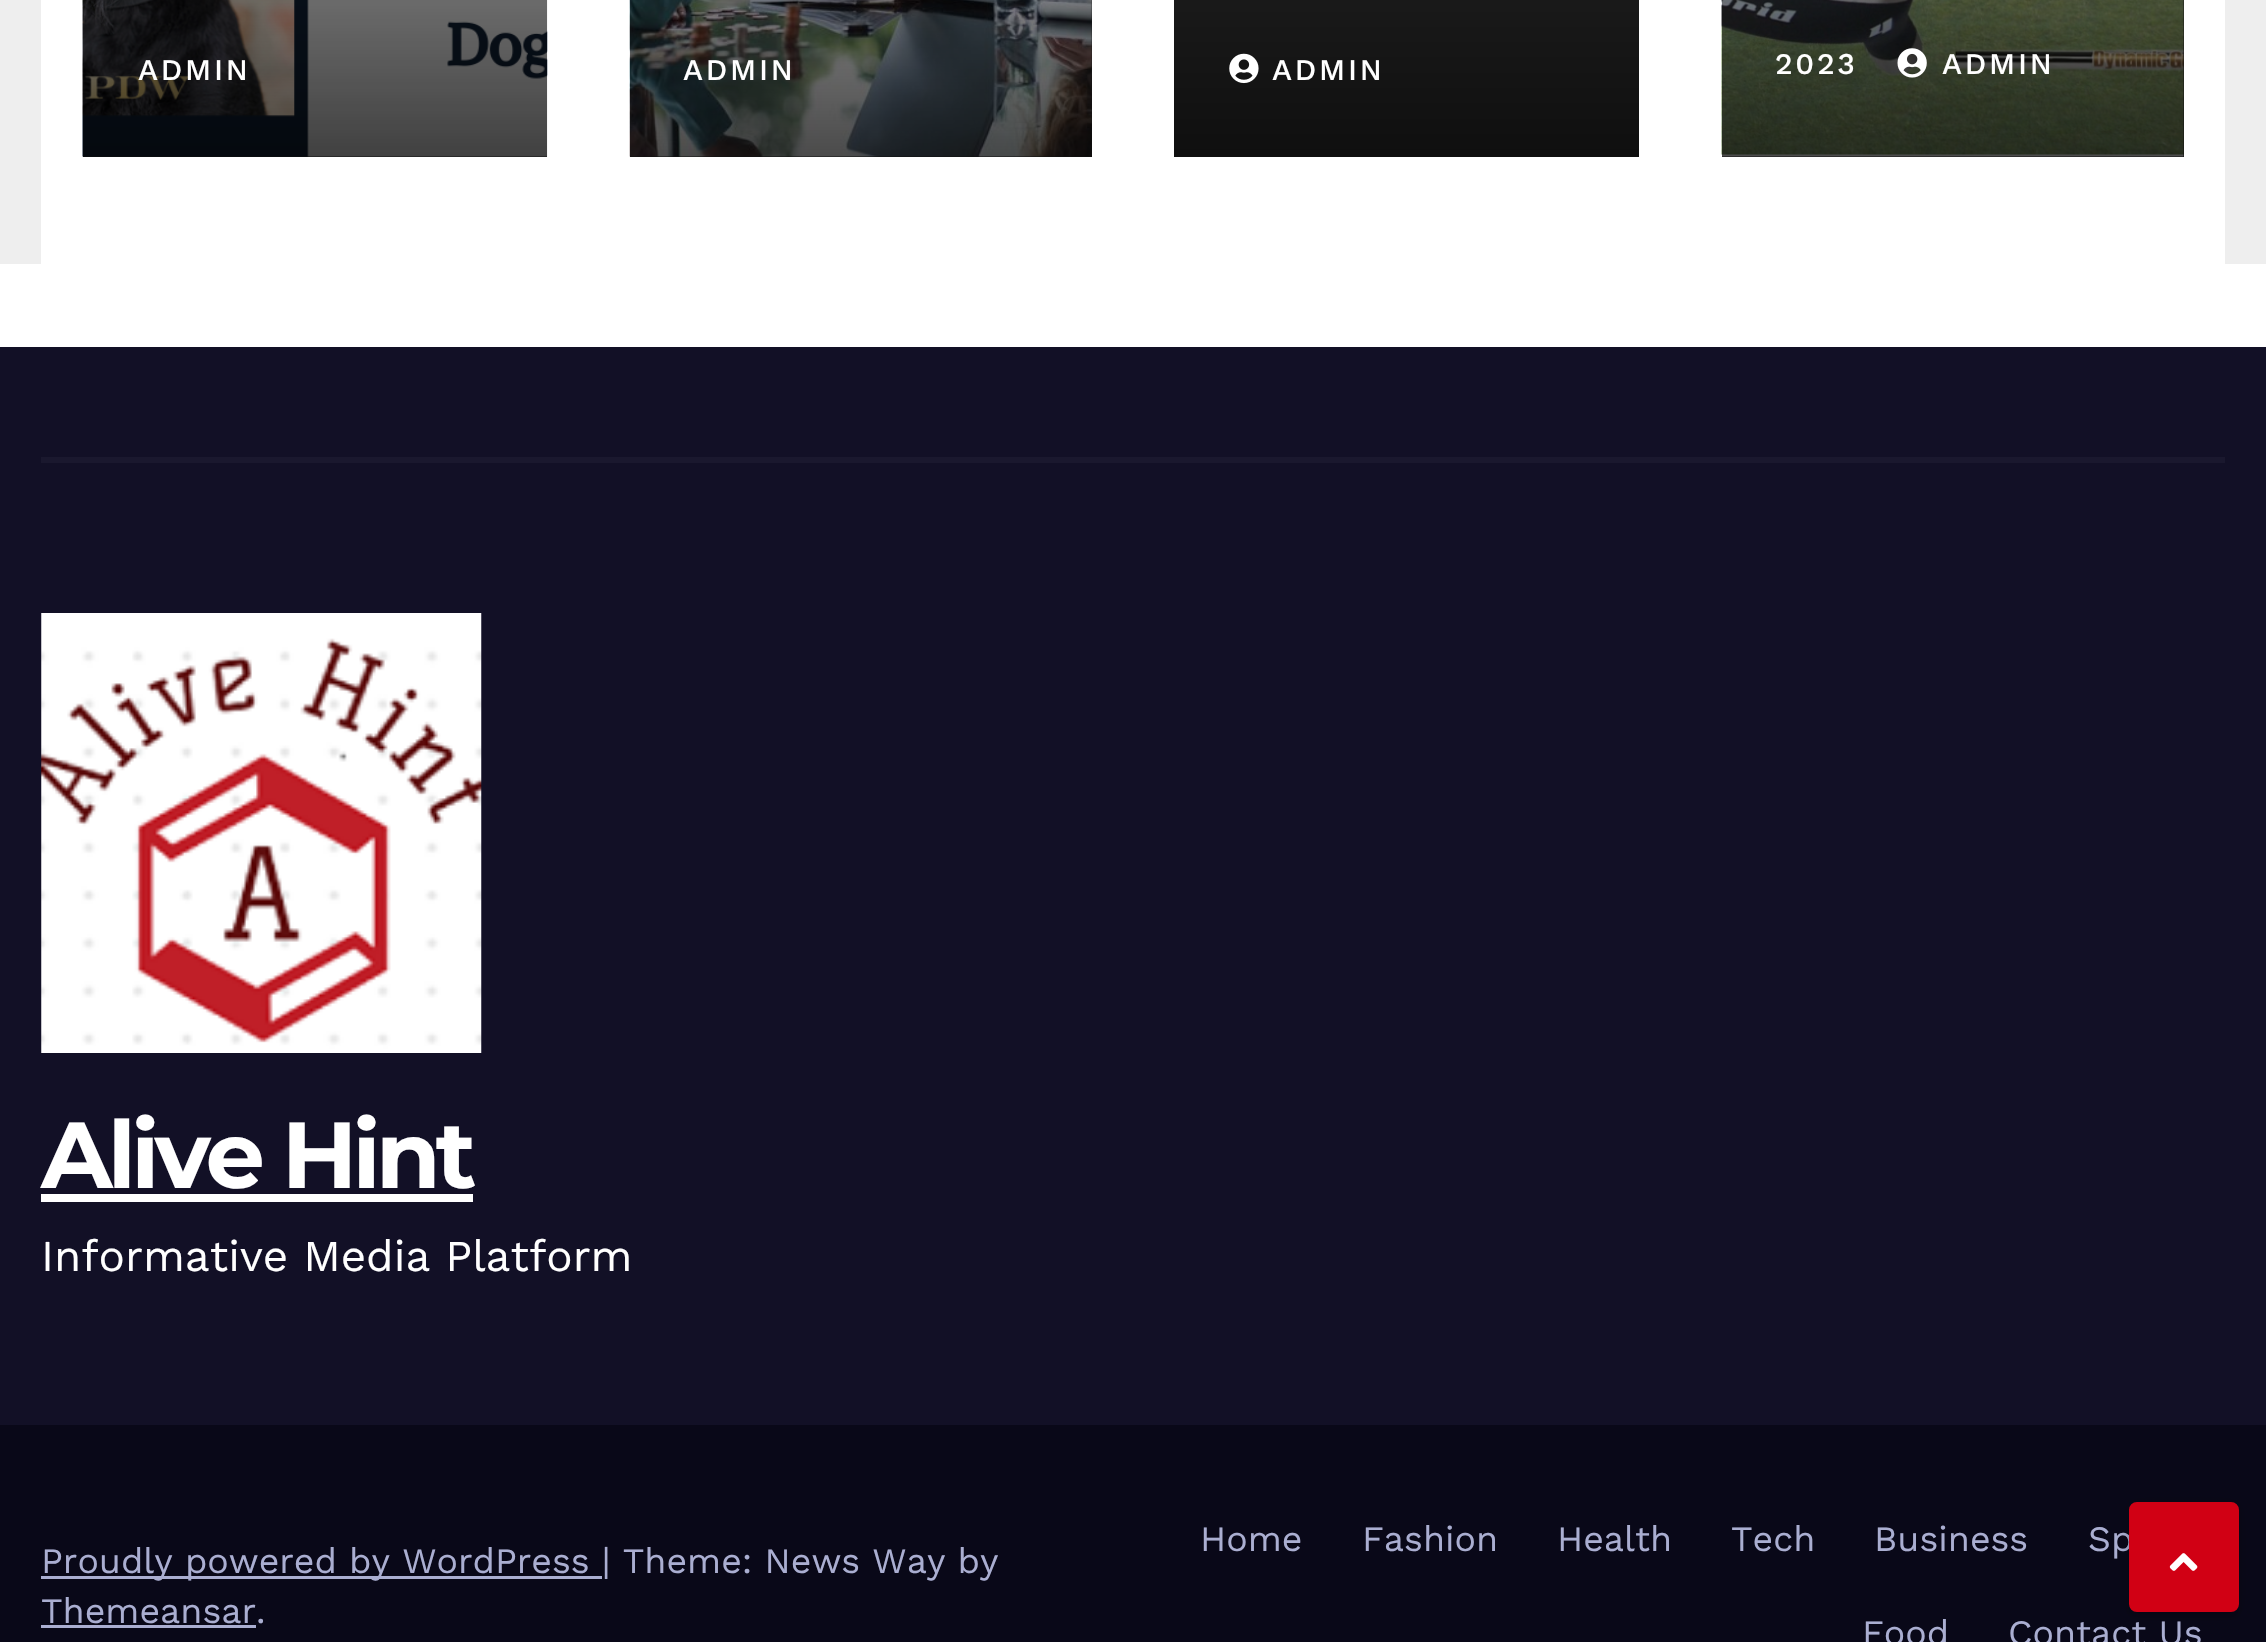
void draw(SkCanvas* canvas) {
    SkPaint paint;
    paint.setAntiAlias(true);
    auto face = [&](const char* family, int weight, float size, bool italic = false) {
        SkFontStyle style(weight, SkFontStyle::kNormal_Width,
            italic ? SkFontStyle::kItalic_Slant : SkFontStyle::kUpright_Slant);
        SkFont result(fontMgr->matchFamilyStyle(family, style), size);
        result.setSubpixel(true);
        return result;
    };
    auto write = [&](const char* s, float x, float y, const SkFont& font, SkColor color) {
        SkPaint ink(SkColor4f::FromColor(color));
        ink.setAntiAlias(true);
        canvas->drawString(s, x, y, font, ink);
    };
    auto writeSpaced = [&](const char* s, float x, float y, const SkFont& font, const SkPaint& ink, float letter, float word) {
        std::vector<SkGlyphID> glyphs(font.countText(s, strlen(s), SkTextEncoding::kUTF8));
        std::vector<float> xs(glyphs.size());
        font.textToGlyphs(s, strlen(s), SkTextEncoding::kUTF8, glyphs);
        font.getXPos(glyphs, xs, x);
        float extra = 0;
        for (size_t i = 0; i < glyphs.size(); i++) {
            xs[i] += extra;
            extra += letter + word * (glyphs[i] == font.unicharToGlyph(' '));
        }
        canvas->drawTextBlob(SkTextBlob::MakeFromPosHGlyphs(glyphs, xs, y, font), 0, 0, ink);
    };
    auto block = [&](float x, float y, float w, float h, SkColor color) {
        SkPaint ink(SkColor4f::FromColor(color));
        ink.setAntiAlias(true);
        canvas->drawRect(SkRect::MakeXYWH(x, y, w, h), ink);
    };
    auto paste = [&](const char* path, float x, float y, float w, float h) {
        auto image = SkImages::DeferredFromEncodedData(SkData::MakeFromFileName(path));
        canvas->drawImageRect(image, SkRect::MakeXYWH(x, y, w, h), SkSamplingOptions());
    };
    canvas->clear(SK_ColorWHITE);
    block(0, 0, 2266, 264, SkColorSetRGB(238, 238, 238));
    block(41, 0, 2184, 264, SK_ColorWHITE);
    block(83, 156, 464, 1, SkColorSetRGB(51, 51, 51));
    paste("pic1.png", 82, 0, 466, 157);
    {
        const SkColor colors[] = {SkColorSetARGB(0, 0, 0, 0), SkColorSetARGB(102, 0, 0, 0), SkColorSetARGB(179, 0, 0, 0)};
        const float stops[] = {0, 0.5f, 1};
        const SkPoint ends[] = {{315, -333}, {315, 157}};
        paint.setShader(SkGradientShader::MakeLinear(ends, colors, stops, 3, SkTileMode::kClamp));
        paint.setAlpha(255);
    }
    canvas->drawRect(SkRect::MakeXYWH(83, 0, 464, 157), paint);
    auto kFont1 = face("Work Sans", 500, 30);
    paint.setShader(nullptr);
    paint.setColor(SK_ColorWHITE);
    writeSpaced("ADMIN", 138, 80, kFont1, paint, 2.75f, 0);
    block(630, 0, 462, 157, SkColorSetRGB(51, 51, 51));
    paste("pic2.png", 629, 0, 463, 157);
    {
        const SkColor colors[] = {SkColorSetARGB(0, 0, 0, 0), SkColorSetARGB(102, 0, 0, 0), SkColorSetARGB(179, 0, 0, 0)};
        const float stops[] = {0, 0.5f, 1};
        const SkPoint ends[] = {{861, -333}, {861, 157}};
        paint.setShader(SkGradientShader::MakeLinear(ends, colors, stops, 3, SkTileMode::kClamp));
        paint.setAlpha(255);
    }
    canvas->drawRect(SkRect::MakeXYWH(630, 0, 462, 157), paint);
    paint.setShader(nullptr);
    paint.setColor(SK_ColorWHITE);
    writeSpaced("ADMIN", 683, 80, kFont1, paint, 2.75f, 0);
    {
        const SkColor colors[] = {SkColorSetRGB(51, 51, 51), SkColorSetRGB(31, 31, 31), SkColorSetRGB(15, 15, 15)};
        const float stops[] = {0, 0.5f, 1};
        const SkPoint ends[] = {{1407, -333}, {1407, 157}};
        paint.setShader(SkGradientShader::MakeLinear(ends, colors, stops, 3, SkTileMode::kClamp));
        paint.setAlpha(255);
    }
    canvas->drawRect(SkRect::MakeXYWH(1174, 0, 465, 157), paint);
    paste("pic3.png", 1229, 53, 30, 31);
    paint.setShader(nullptr);
    paint.setColor(SK_ColorWHITE);
    writeSpaced("ADMIN", 1272, 80, kFont1, paint, 2.75f, 0);
    block(1722, 0, 462, 157, SkColorSetRGB(51, 51, 51));
    paste("pic4.png", 1721, 0, 463, 157);
    {
        const SkColor colors[] = {SkColorSetARGB(0, 0, 0, 0), SkColorSetARGB(102, 0, 0, 0), SkColorSetARGB(179, 0, 0, 0)};
        const float stops[] = {0, 0.5f, 1};
        const SkPoint ends[] = {{1953, -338}, {1953, 157}};
        paint.setShader(SkGradientShader::MakeLinear(ends, colors, stops, 3, SkTileMode::kClamp));
        paint.setAlpha(255);
    }
    canvas->drawRect(SkRect::MakeXYWH(1722, 0, 462, 157), paint);
    paint.setShader(nullptr);
    paint.setColor(SK_ColorWHITE);
    writeSpaced("2023", 1775, 74, kFont1, paint, 2.75f, 0);
    paste("pic5.png", 1897, 48, 30, 30);
    writeSpaced("ADMIN", 1942, 74, kFont1, paint, 2.75f, 0);
    block(0, 347, 2266, 1078, SkColorSetRGB(18, 16, 38));
    block(41, 457, 2184, 6, SkColorSetRGB(26, 24, 46));
    paste("pic6.png", 41, 613, 441, 440);
    auto kFont2 = face("Montserrat", 700, 93.5f);
    writeSpaced("Alive Hint", 41, 1188, kFont2, paint, -4.75f, 0);
    block(41, 1194, 432, 8, SK_ColorWHITE);
    auto kFont3 = face("Work Sans", 400, 44);
    write("Informative Media Platform", 41, 1271, kFont3, SK_ColorWHITE);
    block(0, 1425, 2266, 217, SkColorSetRGB(9, 8, 24));
    block(41, 1576, 561, 3, SkColorSetRGB(170, 174, 209));
    auto kFont4 = face("Work Sans", 400, 35.75f);
    write("Proudly powered by WordPress | Theme: News Way by", 41, 1573, kFont4, SkColorSetRGB(170, 174, 209));
    write("Themeansar.", 41, 1623, kFont4, SkColorSetRGB(170, 174, 209));
    block(41, 1625, 215, 3, SkColorSetRGB(170, 174, 209));
    write("Home", 1200, 1551, kFont4, SkColorSetRGB(170, 174, 209));
    write("Fashion", 1362, 1551, kFont4, SkColorSetRGB(170, 174, 209));
    write("Health", 1557, 1551, kFont4, SkColorSetRGB(170, 174, 209));
    write("Tech", 1731, 1551, kFont4, SkColorSetRGB(170, 174, 209));
    write("Business", 1874, 1551, kFont4, SkColorSetRGB(170, 174, 209));
    write("Sp", 2088, 1551, kFont4, SkColorSetRGB(170, 174, 209));
    write("Food", 1862, 1645, kFont4, SkColorSetRGB(170, 174, 209));
    write("Contact Us", 2008, 1645, kFont4, SkColorSetRGB(170, 174, 209));
    paint.setColor(SkColorSetARGB(31, 0, 0, 0));
    paint.setMaskFilter(SkMaskFilter::MakeBlur(kNormal_SkBlurStyle, 7));
    canvas->drawRoundRect(SkRect::MakeXYWH(2129, 1504, 110, 110), 8, 8, paint);
    paint.setMaskFilter(nullptr);
    paint.setColor(SkColorSetARGB(36, 0, 0, 0));
    paint.setMaskFilter(SkMaskFilter::MakeBlur(kNormal_SkBlurStyle, 3));
    canvas->drawRoundRect(SkRect::MakeXYWH(2129, 1507, 110, 110), 8, 8, paint);
    paint.setMaskFilter(nullptr);
    paint.setColor(SkColorSetRGB(209, 0, 20));
    canvas->drawRoundRect(SkRect::MakeXYWH(2132, 1505, 104, 104), 5, 5, paint);
    paint.setStyle(SkPaint::kStroke_Style);
    paint.setStrokeWidth(6);
    canvas->drawRoundRect(SkRect::MakeXYWH(2132, 1505, 104, 104), 5, 5, paint);
    paste("pic7.png", 2169, 1553, 29, 18);
}
